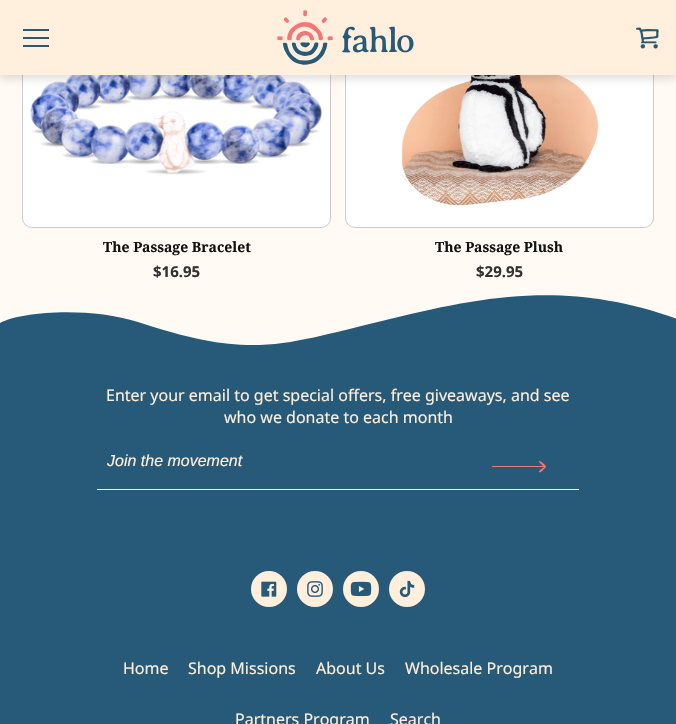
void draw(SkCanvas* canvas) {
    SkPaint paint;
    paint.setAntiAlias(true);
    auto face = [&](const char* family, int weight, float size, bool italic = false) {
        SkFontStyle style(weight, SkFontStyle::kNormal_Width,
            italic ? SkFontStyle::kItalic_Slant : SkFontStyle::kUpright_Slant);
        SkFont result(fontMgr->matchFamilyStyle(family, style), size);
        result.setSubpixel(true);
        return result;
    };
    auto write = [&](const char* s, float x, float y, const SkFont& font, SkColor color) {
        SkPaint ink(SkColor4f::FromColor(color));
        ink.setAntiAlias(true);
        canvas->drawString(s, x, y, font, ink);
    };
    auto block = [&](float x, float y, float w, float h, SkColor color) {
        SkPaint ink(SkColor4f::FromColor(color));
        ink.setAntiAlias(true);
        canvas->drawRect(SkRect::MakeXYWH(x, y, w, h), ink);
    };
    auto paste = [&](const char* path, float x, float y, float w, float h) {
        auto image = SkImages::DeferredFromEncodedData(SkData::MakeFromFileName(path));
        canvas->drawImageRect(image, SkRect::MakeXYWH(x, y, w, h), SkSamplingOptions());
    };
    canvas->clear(SkColorSetRGB(255, 250, 243));
    paint.setColor(SK_ColorWHITE);
    canvas->drawRoundRect(SkRect::MakeXYWH(22.5f, 8.5f, 308, 219), 9.5f, 9.5f, paint);
    paint.setStyle(SkPaint::kStroke_Style);
    paint.setStrokeWidth(1);
    paint.setColor(SkColorSetRGB(204, 204, 204));
    canvas->drawRoundRect(SkRect::MakeXYWH(22.5f, 8.5f, 308, 219), 9.5f, 9.5f, paint);
    paste("pic3.png", 30, 75, 292, 100);
    paint.setStyle(SkPaint::kFill_Style);
    paint.setColor(SK_ColorWHITE);
    canvas->drawRoundRect(SkRect::MakeXYWH(345.5f, 8.5f, 308, 219), 9.5f, 9.5f, paint);
    paint.setStyle(SkPaint::kStroke_Style);
    paint.setColor(SkColorSetRGB(204, 204, 204));
    canvas->drawRoundRect(SkRect::MakeXYWH(345.5f, 8.5f, 308, 219), 9.5f, 9.5f, paint);
    paste("pic4.png", 401, 75, 198, 131);
    paint.setStyle(SkPaint::kFill_Style);
    paint.setColor(SkColorSetARGB(38, 46, 35, 35));
    paint.setMaskFilter(SkMaskFilter::MakeBlur(kNormal_SkBlurStyle, 4));
    canvas->drawRect(SkRect::MakeXYWH(0, 4, 676, 75), paint);
    paint.setMaskFilter(nullptr);
    block(0, 0, 676, 75, SkColorSetRGB(255, 239, 220));
    block(23, 29, 26, 2, SkColorSetRGB(39, 90, 120));
    block(23, 37, 26, 2, SkColorSetRGB(39, 90, 120));
    block(23, 45, 26, 2, SkColorSetRGB(39, 90, 120));
    paste("pic1.png", 277, 10, 137, 55);
    paste("pic2.png", 636, 27, 23, 22);
    auto kFont1 = face("Noto Serif", 700, 14);
    write("The Passage Bracelet", 103, 252, kFont1, SkColorSetRGB(18, 18, 18));
    auto kFont2 = face("Noto Sans", 700, 15);
    write("$16.95", 153, 277, kFont2, SkColorSetRGB(51, 50, 50));
    write("The Passage Plush", 435, 252, kFont1, SkColorSetRGB(18, 18, 18));
    write("$29.95", 476, 277, kFont2, SkColorSetRGB(51, 50, 50));
    paint.setColor(SkColorSetRGB(39, 90, 120));
    canvas->drawPath(SkPathBuilder().moveTo(390, 319).cubicTo(496, 293, 576, 281, 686, 322).lineTo(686, 349).lineTo(-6, 349).lineTo(-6, 328).cubicTo(4, 312, 86, 305, 138, 322).cubicTo(255, 361, 284, 344, 390, 319).close().detach(), paint);
    block(0, 349, 676, 375, SkColorSetRGB(39, 90, 120));
    auto kFont3 = face("Noto Sans", 400, 16);
    write("Enter your email to get special offers, free giveaways, and see", 106, 401, kFont3, SkColorSetRGB(255, 239, 220));
    write("who we donate to each month", 224, 423, kFont3, SkColorSetRGB(255, 239, 220));
    block(97, 489, 482, 1, SkColorSetRGB(255, 239, 220));
    auto kFont4 = face("Liberation Sans", 400, 16, true);
    write("Join the movement", 107, 466, kFont4, SkColorSetRGB(255, 239, 220));
    paint.setColor(SkColorSetRGB(244, 117, 117));
    canvas->drawPath(SkPathBuilder().moveTo(546, 467).cubicTo(547, 466, 540, 460, 539, 461).lineTo(539, 462).lineTo(544, 467).lineTo(539, 471).lineTo(539, 472).cubicTo(540, 474, 545, 468, 546, 467).close().moveTo(492, 467).lineTo(545, 467).lineTo(545, 466).lineTo(492, 466).close().detach(), paint);
    paint.setColor(SkColorSetRGB(255, 239, 220));
    canvas->drawCircle(269, 589, 18, paint);
    paste("pic5.png", 261, 581, 16, 16);
    canvas->drawCircle(315, 589, 18, paint);
    paste("pic6.png", 307, 581, 16, 16);
    canvas->drawCircle(361, 589, 18, paint);
    paste("pic7.png", 350, 581, 22, 16);
    canvas->drawCircle(407, 589, 18, paint);
    paste("pic8.png", 399, 580, 16, 18);
    write("Home", 123, 674, kFont3, SkColorSetRGB(255, 239, 220));
    write("Shop Missions", 188, 674, kFont3, SkColorSetRGB(255, 239, 220));
    write("About Us", 316, 674, kFont3, SkColorSetRGB(255, 239, 220));
    write("Wholesale Program", 405, 674, kFont3, SkColorSetRGB(255, 239, 220));
    write("Partners Program", 235, 725, kFont3, SkColorSetRGB(255, 239, 220));
    write("Search", 390, 725, kFont3, SkColorSetRGB(255, 239, 220));
}
